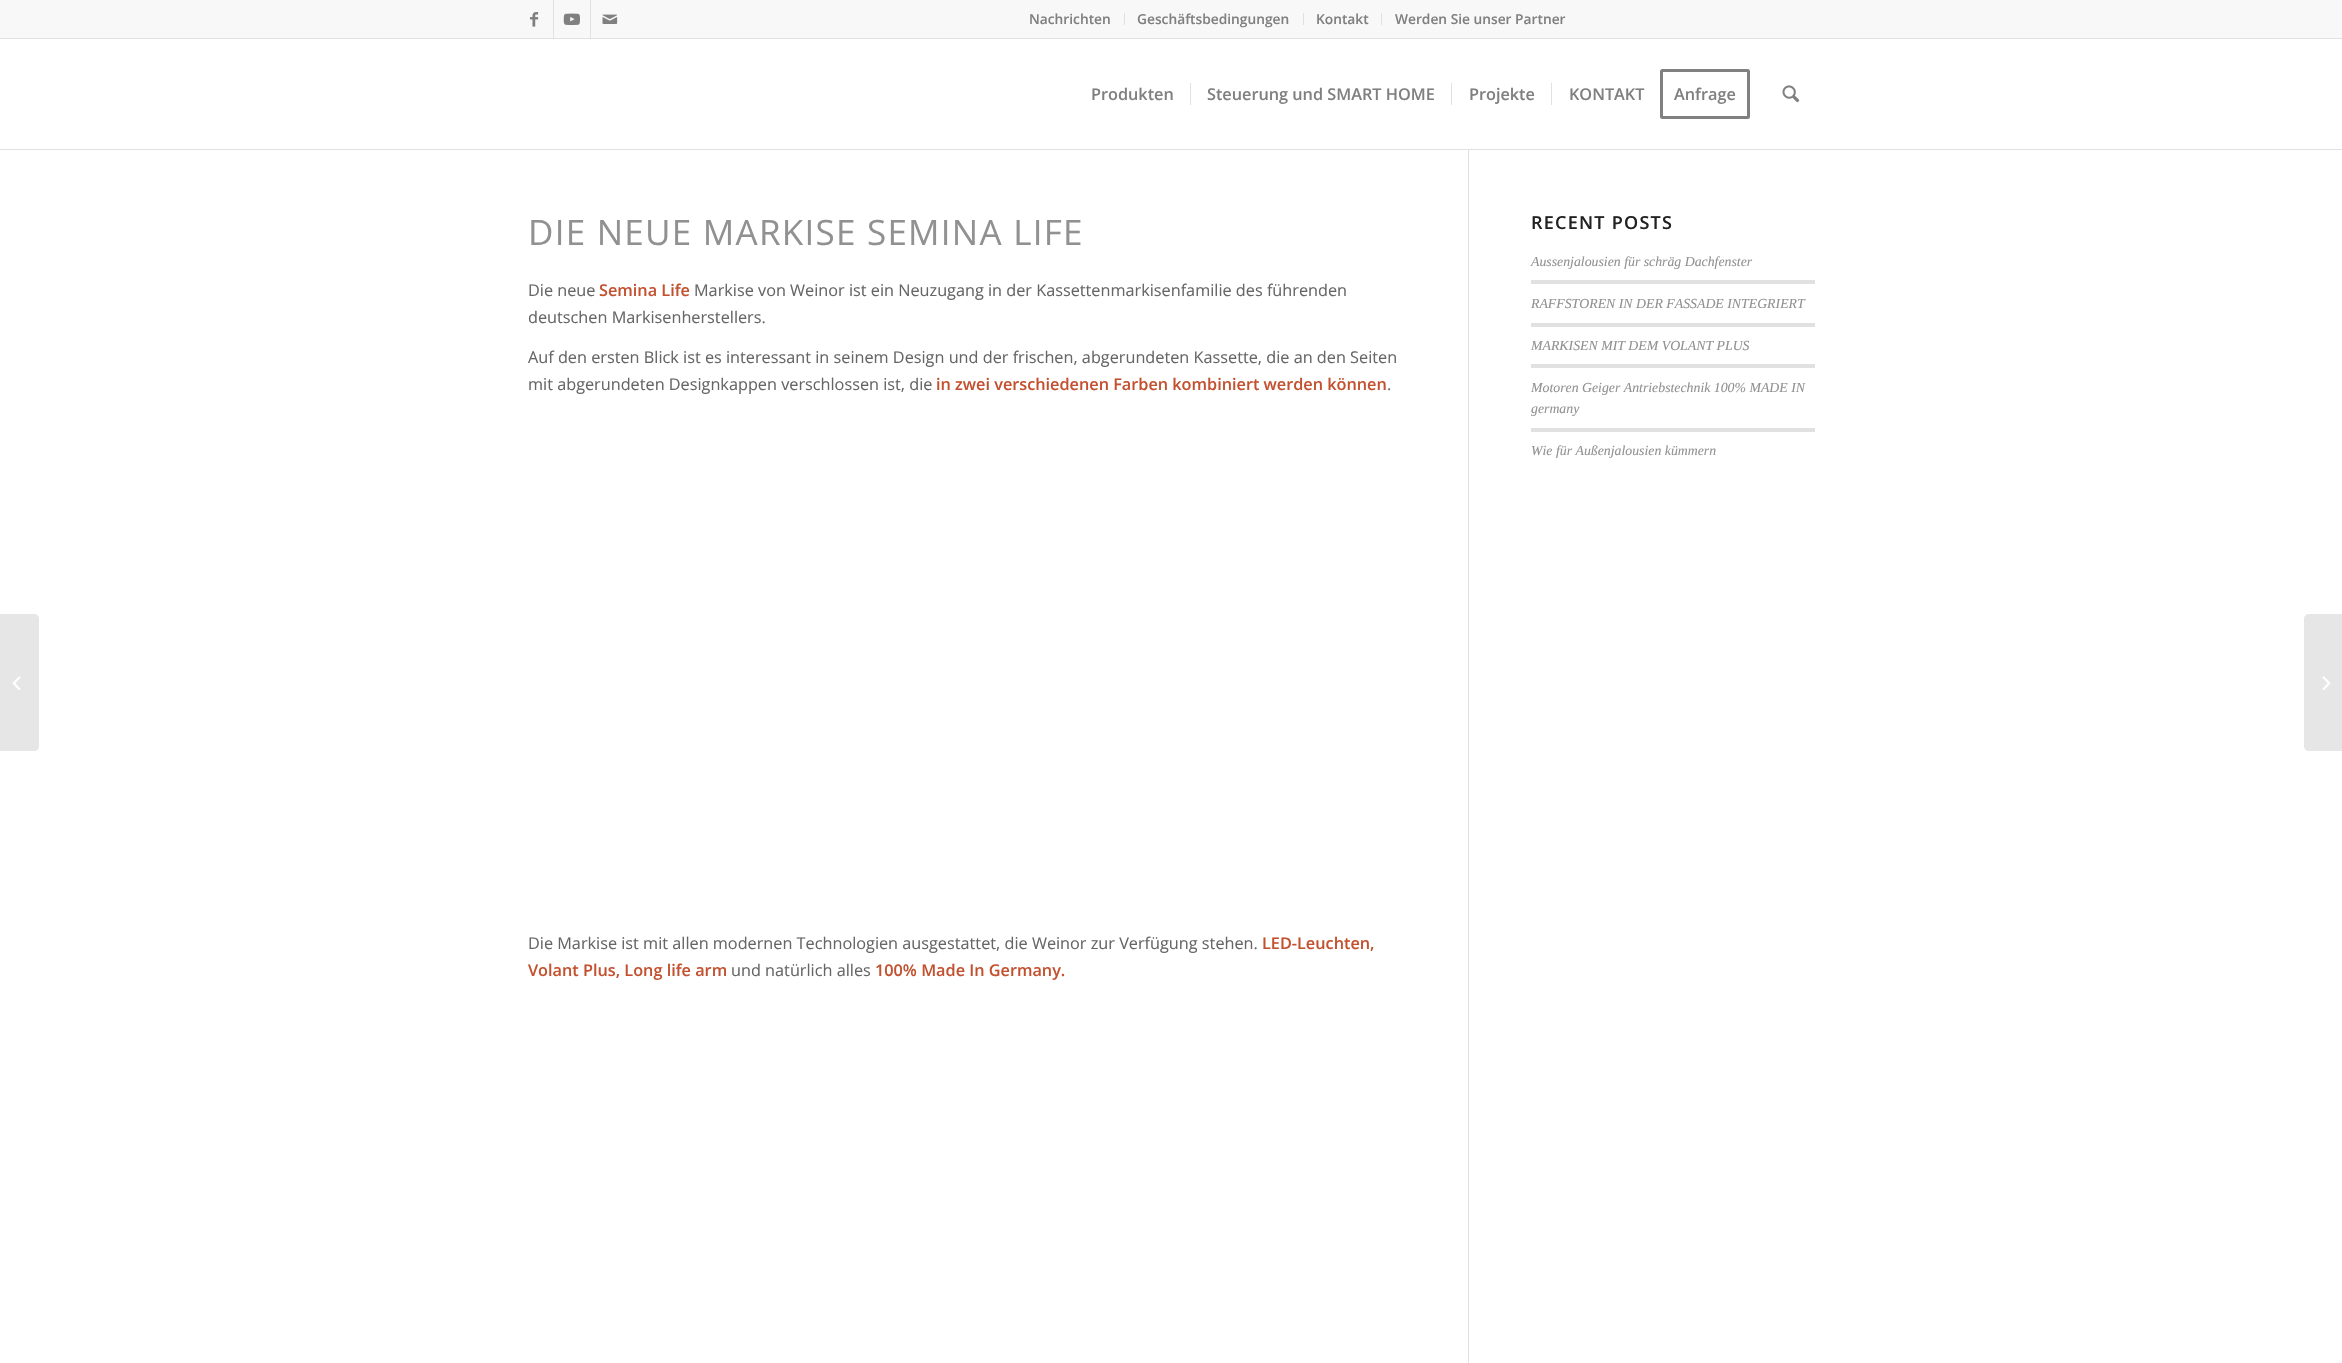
void draw(SkCanvas* canvas) {
    SkPaint paint;
    paint.setAntiAlias(true);
    auto face = [&](const char* family, int weight, float size, bool italic = false) {
        SkFontStyle style(weight, SkFontStyle::kNormal_Width,
            italic ? SkFontStyle::kItalic_Slant : SkFontStyle::kUpright_Slant);
        SkFont result(fontMgr->matchFamilyStyle(family, style), size);
        result.setSubpixel(true);
        return result;
    };
    auto write = [&](const char* s, float x, float y, const SkFont& font, SkColor color) {
        SkPaint ink(SkColor4f::FromColor(color));
        ink.setAntiAlias(true);
        canvas->drawString(s, x, y, font, ink);
    };
    auto writeSpaced = [&](const char* s, float x, float y, const SkFont& font, const SkPaint& ink, float letter, float word) {
        std::vector<SkGlyphID> glyphs(font.countText(s, strlen(s), SkTextEncoding::kUTF8));
        std::vector<float> xs(glyphs.size());
        font.textToGlyphs(s, strlen(s), SkTextEncoding::kUTF8, glyphs);
        font.getXPos(glyphs, xs, x);
        float extra = 0;
        for (size_t i = 0; i < glyphs.size(); i++) {
            xs[i] += extra;
            extra += letter + word * (glyphs[i] == font.unicharToGlyph(' '));
        }
        canvas->drawTextBlob(SkTextBlob::MakeFromPosHGlyphs(glyphs, xs, y, font), 0, 0, ink);
    };
    auto block = [&](float x, float y, float w, float h, SkColor color) {
        SkPaint ink(SkColor4f::FromColor(color));
        ink.setAntiAlias(true);
        canvas->drawRect(SkRect::MakeXYWH(x, y, w, h), ink);
    };
    auto paste = [&](const char* path, float x, float y, float w, float h) {
        auto image = SkImages::DeferredFromEncodedData(SkData::MakeFromFileName(path));
        canvas->drawImageRect(image, SkRect::MakeXYWH(x, y, w, h), SkSamplingOptions());
    };
    canvas->clear(SK_ColorWHITE);
    block(0, 0, 2342, 38, SkColorSetRGB(248, 248, 248));
    block(0, 38, 2342, 1, SkColorSetRGB(225, 225, 225));
    block(553, 0, 1, 38, SkColorSetRGB(225, 225, 225));
    paste("pic1.png", 530, 12, 9, 15);
    block(590, 0, 1, 38, SkColorSetRGB(225, 225, 225));
    paste("pic2.png", 563, 13, 17, 12);
    paste("pic3.png", 602, 14, 16, 10);
    block(1124, 13, 1, 12, SkColorSetRGB(225, 225, 225));
    auto kFont1 = face("Open Sans", 600, 13.75f);
    write("Nachrichten", 1029, 24, kFont1, SkColorSetRGB(128, 128, 128));
    block(1303, 13, 1, 12, SkColorSetRGB(225, 225, 225));
    write("Geschäftsbedingungen", 1137, 24, kFont1, SkColorSetRGB(128, 128, 128));
    block(1381, 13, 1, 12, SkColorSetRGB(225, 225, 225));
    write("Kontakt", 1316, 24, kFont1, SkColorSetRGB(128, 128, 128));
    write("Werden Sie unser Partner", 1395, 24, kFont1, SkColorSetRGB(128, 128, 128));
    block(0, 149, 2342, 1, SkColorSetRGB(225, 225, 225));
    auto kFont2 = face("Open Sans", 600, 16.25f);
    write("Produkten", 1091, 100, kFont2, SkColorSetRGB(128, 128, 128));
    write("Steuerung und SMART HOME", 1207, 100, kFont2, SkColorSetRGB(128, 128, 128));
    block(1190, 83, 1, 22, SkColorSetRGB(225, 225, 225));
    write("Projekte", 1469, 100, kFont2, SkColorSetRGB(128, 128, 128));
    block(1451, 83, 1, 22, SkColorSetRGB(225, 225, 225));
    write("KONTAKT", 1569, 100, kFont2, SkColorSetRGB(128, 128, 128));
    block(1551, 83, 1, 22, SkColorSetRGB(225, 225, 225));
    paint.setStyle(SkPaint::kStroke_Style);
    paint.setStrokeWidth(3);
    paint.setColor(SkColorSetRGB(128, 128, 128));
    canvas->drawRoundRect(SkRect::MakeXYWH(1661.5f, 70.5f, 87, 47), 1, 1, paint);
    write("Anfrage", 1674, 100, kFont2, SkColorSetRGB(128, 128, 128));
    paste("pic4.png", 1782, 85, 18, 18);
    paint.setStyle(SkPaint::kFill_Style);
    paint.setColor(SkColorSetRGB(230, 230, 230));
    canvas->drawPath(SkPathBuilder().moveTo(0, 614).lineTo(34, 614).cubicTo(37, 614, 39, 616, 39, 619).lineTo(39, 746).cubicTo(39, 749, 37, 751, 34, 751).lineTo(0, 751).close().detach(), paint);
    paste("pic5.png", 12, 676, 9, 14);
    block(1468, 150, 1, 1213, SkColorSetRGB(225, 225, 225));
    auto kFont3 = face("Open Sans", 400, 35);
    paint.setColor(SkColorSetRGB(145, 145, 145));
    writeSpaced("DIE NEUE MARKISE SEMINA LIFE", 528, 245, kFont3, paint, 1.25f, 0);
    auto kFont4 = face("Open Sans", 400, 16.25f);
    write("Die neue", 528, 296, kFont4, SkColorSetRGB(102, 102, 102));
    write("Semina Life", 599, 296, kFont2, SkColorSetRGB(195, 81, 47));
    write("Markise von Weinor ist ein Neuzugang in der Kassettenmarkisenfamilie des führenden", 694, 296, kFont4, SkColorSetRGB(102, 102, 102));
    write("deutschen Markisenherstellers.", 528, 323, kFont4, SkColorSetRGB(102, 102, 102));
    write("Auf den ersten Blick ist es interessant in seinem Design und der frischen, abgerundeten Kassette, die an den Seiten", 528, 363, kFont4, SkColorSetRGB(102, 102, 102));
    write("mit abgerundeten Designkappen verschlossen ist, die", 528, 390, kFont4, SkColorSetRGB(102, 102, 102));
    write("in zwei verschiedenen Farben kombiniert werden können", 936, 390, kFont2, SkColorSetRGB(195, 81, 47));
    write(".", 1387, 390, kFont4, SkColorSetRGB(102, 102, 102));
    write("Die Markise ist mit allen modernen Technologien ausgestattet, die Weinor zur Verfügung stehen.", 528, 949, kFont4, SkColorSetRGB(102, 102, 102));
    write("LED-Leuchten,", 1262, 949, kFont2, SkColorSetRGB(195, 81, 47));
    write("Volant Plus, Long life arm", 528, 976, kFont2, SkColorSetRGB(195, 81, 47));
    write("und natürlich alles", 731, 976, kFont4, SkColorSetRGB(102, 102, 102));
    write("100% Made In Germany.", 875, 976, kFont2, SkColorSetRGB(195, 81, 47));
    auto kFont5 = face("Open Sans", 600, 18);
    paint.setColor(SkColorSetRGB(34, 34, 34));
    writeSpaced("RECENT POSTS", 1531, 229, kFont5, paint, 1.25f, 0);
    auto kFont6 = face("Liberation Serif", 400, 13.8f, true);
    write("Aussenjalousien für schräg Dachfenster", 1531, 266, kFont6, SkColorSetRGB(145, 145, 145));
    block(1531, 280, 284, 4, SkColorSetRGB(225, 225, 225));
    write("RAFFSTOREN IN DER FASSADE INTEGRIERT", 1531, 308, kFont6, SkColorSetRGB(145, 145, 145));
    block(1531, 323, 284, 4, SkColorSetRGB(225, 225, 225));
    write("MARKISEN MIT DEM VOLANT PLUS", 1531, 350, kFont6, SkColorSetRGB(145, 145, 145));
    block(1531, 364, 284, 4, SkColorSetRGB(225, 225, 225));
    write("Motoren Geiger Antriebstechnik 100% MADE IN", 1531, 392, kFont6, SkColorSetRGB(145, 145, 145));
    write("germany", 1531, 413, kFont6, SkColorSetRGB(145, 145, 145));
    block(1531, 428, 284, 4, SkColorSetRGB(225, 225, 225));
    write("Wie für Außenjalousien kümmern", 1531, 455, kFont6, SkColorSetRGB(145, 145, 145));
    paint.setColor(SkColorSetRGB(230, 230, 230));
    canvas->drawPath(SkPathBuilder().moveTo(2309, 614).lineTo(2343, 614).lineTo(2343, 751).lineTo(2309, 751).cubicTo(2306, 751, 2304, 749, 2304, 746).lineTo(2304, 619).cubicTo(2304, 616, 2306, 614, 2309, 614).close().detach(), paint);
    paste("pic6.png", 2322, 676, 9, 14);
}
